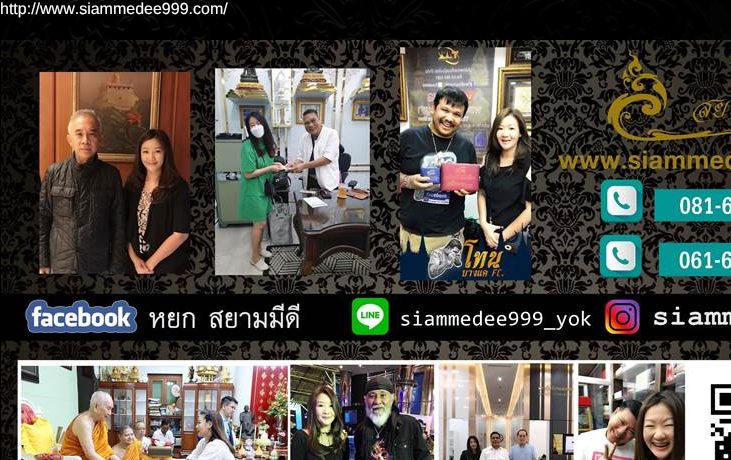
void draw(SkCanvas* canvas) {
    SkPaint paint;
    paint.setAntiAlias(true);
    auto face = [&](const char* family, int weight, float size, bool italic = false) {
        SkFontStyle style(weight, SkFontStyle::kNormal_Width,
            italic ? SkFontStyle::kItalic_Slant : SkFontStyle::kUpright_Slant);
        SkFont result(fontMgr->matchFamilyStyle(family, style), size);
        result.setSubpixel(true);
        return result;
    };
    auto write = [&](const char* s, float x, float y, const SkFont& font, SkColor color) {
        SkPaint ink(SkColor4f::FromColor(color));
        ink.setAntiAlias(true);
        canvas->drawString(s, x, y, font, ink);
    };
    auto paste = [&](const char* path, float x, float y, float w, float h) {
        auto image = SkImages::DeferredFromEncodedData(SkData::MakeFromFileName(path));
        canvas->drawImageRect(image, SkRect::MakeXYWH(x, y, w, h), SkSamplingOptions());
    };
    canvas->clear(SK_ColorWHITE);
    paste("pic1.png", 0, 0, 731, 460);
    auto kFont1 = face("Liberation Sans", 400, 16);
    write("http://www.siammedee999.com/", 0, 14, kFont1, SK_ColorWHITE);
    paste("pic2.png", 1, 40, 730, 420);
}
